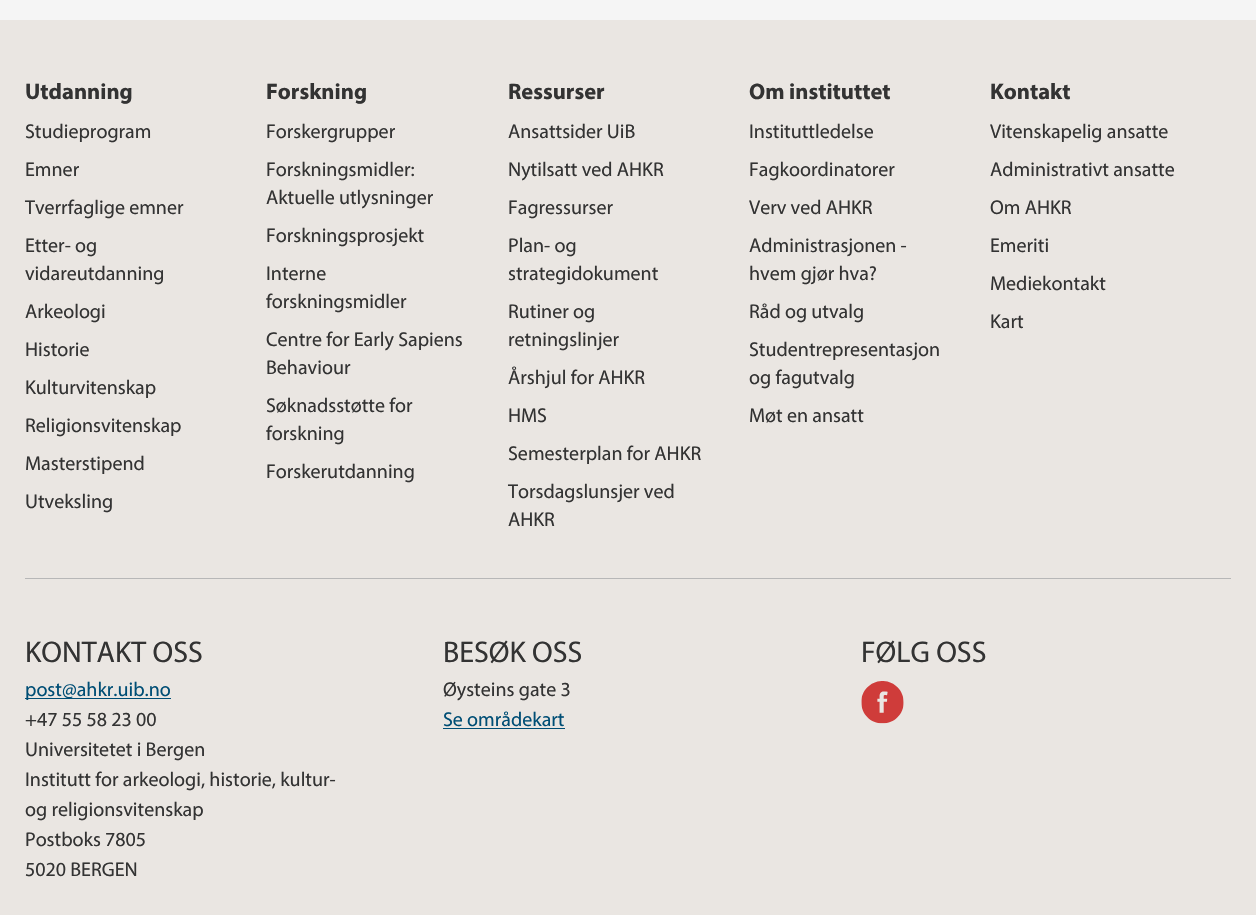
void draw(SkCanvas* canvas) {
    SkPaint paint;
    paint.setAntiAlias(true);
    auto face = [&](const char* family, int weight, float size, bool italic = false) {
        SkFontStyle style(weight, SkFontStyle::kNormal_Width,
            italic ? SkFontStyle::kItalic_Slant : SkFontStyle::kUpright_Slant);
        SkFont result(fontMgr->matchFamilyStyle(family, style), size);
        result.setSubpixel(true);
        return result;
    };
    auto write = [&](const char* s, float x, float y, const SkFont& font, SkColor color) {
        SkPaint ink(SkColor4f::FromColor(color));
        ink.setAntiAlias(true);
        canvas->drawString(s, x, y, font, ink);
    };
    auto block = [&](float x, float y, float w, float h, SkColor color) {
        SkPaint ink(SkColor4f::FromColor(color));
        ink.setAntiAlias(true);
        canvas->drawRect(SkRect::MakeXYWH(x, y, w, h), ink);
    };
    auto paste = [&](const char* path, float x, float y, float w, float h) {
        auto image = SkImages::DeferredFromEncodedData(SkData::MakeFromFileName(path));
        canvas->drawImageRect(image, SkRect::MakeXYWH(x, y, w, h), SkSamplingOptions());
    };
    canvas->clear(SkColorSetRGB(245, 245, 245));
    block(0, 20, 1256, 895, SkColorSetRGB(234, 230, 226));
    block(25, 578, 1206, 1, SkColorSetRGB(183, 183, 183));
    auto kFont1 = face("Myriad", 700, 22.5f);
    write("Utdanning", 25, 99, kFont1, SkColorSetRGB(51, 51, 51));
    auto kFont2 = face("Myriad", 400, 20);
    write("Studieprogram", 25, 138, kFont2, SkColorSetRGB(51, 51, 51));
    write("Emner", 25, 176, kFont2, SkColorSetRGB(51, 51, 51));
    write("Tverrfaglige emner", 25, 214, kFont2, SkColorSetRGB(51, 51, 51));
    write("Etter- og", 25, 252, kFont2, SkColorSetRGB(51, 51, 51));
    write("vidareutdanning", 25, 280, kFont2, SkColorSetRGB(51, 51, 51));
    write("Arkeologi", 25, 318, kFont2, SkColorSetRGB(51, 51, 51));
    write("Historie", 25, 356, kFont2, SkColorSetRGB(51, 51, 51));
    write("Kulturvitenskap", 25, 394, kFont2, SkColorSetRGB(51, 51, 51));
    write("Religionsvitenskap", 25, 432, kFont2, SkColorSetRGB(51, 51, 51));
    write("Masterstipend", 25, 470, kFont2, SkColorSetRGB(51, 51, 51));
    write("Utveksling", 25, 508, kFont2, SkColorSetRGB(51, 51, 51));
    write("Forskning", 266, 99, kFont1, SkColorSetRGB(51, 51, 51));
    write("Forskergrupper", 266, 138, kFont2, SkColorSetRGB(51, 51, 51));
    write("Forskningsmidler:", 266, 176, kFont2, SkColorSetRGB(51, 51, 51));
    write("Aktuelle utlysninger", 266, 204, kFont2, SkColorSetRGB(51, 51, 51));
    write("Forskningsprosjekt", 266, 242, kFont2, SkColorSetRGB(51, 51, 51));
    write("Interne", 266, 280, kFont2, SkColorSetRGB(51, 51, 51));
    write("forskningsmidler", 266, 308, kFont2, SkColorSetRGB(51, 51, 51));
    write("Centre for Early Sapiens", 266, 346, kFont2, SkColorSetRGB(51, 51, 51));
    write("Behaviour", 266, 374, kFont2, SkColorSetRGB(51, 51, 51));
    write("Søknadsstøtte for", 266, 412, kFont2, SkColorSetRGB(51, 51, 51));
    write("forskning", 266, 440, kFont2, SkColorSetRGB(51, 51, 51));
    write("Forskerutdanning", 266, 478, kFont2, SkColorSetRGB(51, 51, 51));
    write("Ressurser", 508, 99, kFont1, SkColorSetRGB(51, 51, 51));
    write("Ansattsider UiB", 508, 138, kFont2, SkColorSetRGB(51, 51, 51));
    write("Nytilsatt ved AHKR", 508, 176, kFont2, SkColorSetRGB(51, 51, 51));
    write("Fagressurser", 508, 214, kFont2, SkColorSetRGB(51, 51, 51));
    write("Plan- og", 508, 252, kFont2, SkColorSetRGB(51, 51, 51));
    write("strategidokument", 508, 280, kFont2, SkColorSetRGB(51, 51, 51));
    write("Rutiner og", 508, 318, kFont2, SkColorSetRGB(51, 51, 51));
    write("retningslinjer", 508, 346, kFont2, SkColorSetRGB(51, 51, 51));
    write("Årshjul for AHKR", 508, 384, kFont2, SkColorSetRGB(51, 51, 51));
    write("HMS", 508, 422, kFont2, SkColorSetRGB(51, 51, 51));
    write("Semesterplan for AHKR", 508, 460, kFont2, SkColorSetRGB(51, 51, 51));
    write("Torsdagslunsjer ved", 508, 498, kFont2, SkColorSetRGB(51, 51, 51));
    write("AHKR", 508, 526, kFont2, SkColorSetRGB(51, 51, 51));
    write("Om instituttet", 749, 99, kFont1, SkColorSetRGB(51, 51, 51));
    write("Instituttledelse", 749, 138, kFont2, SkColorSetRGB(51, 51, 51));
    write("Fagkoordinatorer", 749, 176, kFont2, SkColorSetRGB(51, 51, 51));
    write("Verv ved AHKR", 749, 214, kFont2, SkColorSetRGB(51, 51, 51));
    write("Administrasjonen -", 749, 252, kFont2, SkColorSetRGB(51, 51, 51));
    write("hvem gjør hva?", 749, 280, kFont2, SkColorSetRGB(51, 51, 51));
    write("Råd og utvalg", 749, 318, kFont2, SkColorSetRGB(51, 51, 51));
    write("Studentrepresentasjon", 749, 356, kFont2, SkColorSetRGB(51, 51, 51));
    write("og fagutvalg", 749, 384, kFont2, SkColorSetRGB(51, 51, 51));
    write("Møt en ansatt", 749, 422, kFont2, SkColorSetRGB(51, 51, 51));
    write("Kontakt", 990, 99, kFont1, SkColorSetRGB(51, 51, 51));
    write("Vitenskapelig ansatte", 990, 138, kFont2, SkColorSetRGB(51, 51, 51));
    write("Administrativt ansatte", 990, 176, kFont2, SkColorSetRGB(51, 51, 51));
    write("Om AHKR", 990, 214, kFont2, SkColorSetRGB(51, 51, 51));
    write("Emeriti", 990, 252, kFont2, SkColorSetRGB(51, 51, 51));
    write("Mediekontakt", 990, 290, kFont2, SkColorSetRGB(51, 51, 51));
    write("Kart", 990, 328, kFont2, SkColorSetRGB(51, 51, 51));
    auto kFont3 = face("Myriad", 400, 30);
    write("KONTAKT OSS", 25, 662, kFont3, SkColorSetRGB(51, 51, 51));
    block(25, 698, 146, 1, SkColorSetRGB(0, 78, 117));
    write("post@ahkr.uib.no", 25, 696, kFont2, SkColorSetRGB(0, 78, 117));
    write("+47 55 58 23 00", 25, 726, kFont2, SkColorSetRGB(51, 51, 51));
    write("Universitetet i Bergen", 25, 756, kFont2, SkColorSetRGB(51, 51, 51));
    write("Institutt for arkeologi, historie, kultur-", 25, 786, kFont2, SkColorSetRGB(51, 51, 51));
    write("og religionsvitenskap", 25, 816, kFont2, SkColorSetRGB(51, 51, 51));
    write("Postboks 7805", 25, 846, kFont2, SkColorSetRGB(51, 51, 51));
    write("5020 BERGEN", 25, 876, kFont2, SkColorSetRGB(51, 51, 51));
    write("BESØK OSS", 443, 662, kFont3, SkColorSetRGB(51, 51, 51));
    write("Øysteins gate 3", 443, 696, kFont2, SkColorSetRGB(51, 51, 51));
    write("Se områdekart", 443, 726, kFont2, SkColorSetRGB(0, 78, 117));
    block(443, 728, 122, 1, SkColorSetRGB(0, 78, 117));
    write("FØLG OSS", 861, 662, kFont3, SkColorSetRGB(51, 51, 51));
    paste("pic1.png", 861, 681, 43, 43);
}
